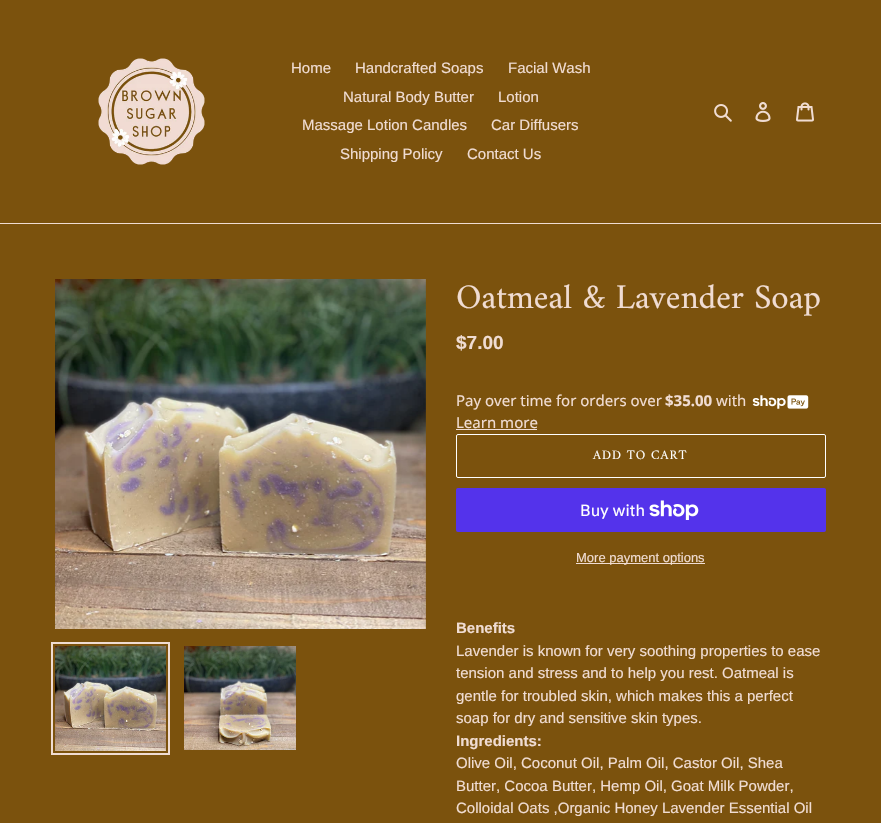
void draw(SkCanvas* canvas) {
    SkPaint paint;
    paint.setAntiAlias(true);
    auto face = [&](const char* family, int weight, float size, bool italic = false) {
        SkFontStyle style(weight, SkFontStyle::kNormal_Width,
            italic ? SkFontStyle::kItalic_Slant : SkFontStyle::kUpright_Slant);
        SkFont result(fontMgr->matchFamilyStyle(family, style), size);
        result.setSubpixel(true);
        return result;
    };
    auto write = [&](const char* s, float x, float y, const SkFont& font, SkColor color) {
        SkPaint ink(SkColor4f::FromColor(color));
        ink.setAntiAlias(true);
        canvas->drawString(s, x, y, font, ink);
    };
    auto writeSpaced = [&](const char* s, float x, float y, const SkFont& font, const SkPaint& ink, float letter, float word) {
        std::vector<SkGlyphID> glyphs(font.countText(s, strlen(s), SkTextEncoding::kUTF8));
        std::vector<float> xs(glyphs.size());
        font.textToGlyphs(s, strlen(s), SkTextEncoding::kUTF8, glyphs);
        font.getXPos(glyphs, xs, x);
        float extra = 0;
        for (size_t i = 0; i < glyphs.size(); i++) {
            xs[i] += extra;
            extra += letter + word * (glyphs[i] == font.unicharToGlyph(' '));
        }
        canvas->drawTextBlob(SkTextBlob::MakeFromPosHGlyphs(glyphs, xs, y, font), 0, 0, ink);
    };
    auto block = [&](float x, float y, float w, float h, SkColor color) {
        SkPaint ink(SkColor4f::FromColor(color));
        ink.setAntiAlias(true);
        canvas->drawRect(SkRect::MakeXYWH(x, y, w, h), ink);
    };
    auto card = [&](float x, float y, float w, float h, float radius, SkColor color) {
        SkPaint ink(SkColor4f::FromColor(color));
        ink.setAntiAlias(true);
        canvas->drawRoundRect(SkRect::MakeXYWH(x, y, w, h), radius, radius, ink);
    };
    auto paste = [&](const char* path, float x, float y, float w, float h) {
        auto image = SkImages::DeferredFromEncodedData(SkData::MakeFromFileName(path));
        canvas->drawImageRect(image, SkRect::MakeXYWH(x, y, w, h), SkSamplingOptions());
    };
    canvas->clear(SkColorSetRGB(123, 82, 13));
    block(0, 223, 881, 1, SkColorSetRGB(240, 220, 210));
    paste("pic1.png", 98, 58, 107, 107);
    auto kFont1 = face("Liberation Sans", 400, 15);
    write("Home", 291, 73, kFont1, SkColorSetRGB(240, 220, 210));
    write("Handcrafted Soaps", 355, 73, kFont1, SkColorSetRGB(240, 220, 210));
    write("Facial Wash", 508, 73, kFont1, SkColorSetRGB(240, 220, 210));
    write("Natural Body Butter", 343, 102, kFont1, SkColorSetRGB(240, 220, 210));
    write("Lotion", 498, 102, kFont1, SkColorSetRGB(240, 220, 210));
    write("Massage Lotion Candles", 302, 130, kFont1, SkColorSetRGB(240, 220, 210));
    write("Car Diffusers", 491, 130, kFont1, SkColorSetRGB(240, 220, 210));
    write("Shipping Policy", 340, 159, kFont1, SkColorSetRGB(240, 220, 210));
    write("Contact Us", 467, 159, kFont1, SkColorSetRGB(240, 220, 210));
    paste("pic2.png", 714, 104, 18, 18);
    paste("pic3.png", 755, 102, 16, 20);
    paste("pic4.png", 796, 102, 18, 20);
    paste("pic5.png", 55, 279, 371, 350);
    paint.setStyle(SkPaint::kStroke_Style);
    paint.setStrokeWidth(2);
    paint.setColor(SkColorSetRGB(240, 220, 210));
    canvas->drawRect(SkRect::MakeXYWH(52, 643, 117, 111), paint);
    paste("pic6.png", 55, 646, 111, 105);
    paste("pic7.png", 184, 646, 112, 104);
    auto kFont2 = face("Amiri", 400, 35);
    write("Oatmeal & Lavender Soap", 456, 308, kFont2, SkColorSetRGB(240, 220, 210));
    auto kFont3 = face("Liberation Sans", 700, 19);
    write("$7.00", 456, 349, kFont3, SkColorSetRGB(240, 220, 210));
    auto kFont4 = face("Noto Sans", 400, 15);
    write("Pay over time for orders over", 456, 406, kFont4, SkColorSetRGB(240, 220, 210));
    auto kFont5 = face("Noto Sans", 700, 15);
    write("$35.00", 665, 406, kFont5, SkColorSetRGB(240, 220, 210));
    write("with", 716, 406, kFont4, SkColorSetRGB(240, 220, 210));
    paste("pic8.png", 752, 395, 57, 14);
    write("Learn more", 456, 428, kFont4, SkColorSetRGB(240, 220, 210));
    block(456, 429, 81, 1, SkColorSetRGB(240, 220, 210));
    paint.setStrokeWidth(1);
    paint.setColor(SK_ColorWHITE);
    canvas->drawRoundRect(SkRect::MakeXYWH(456.5f, 434.5f, 369, 43), 1.5f, 1.5f, paint);
    auto kFont6 = face("Amiri", 400, 13);
    paint.setStyle(SkPaint::kFill_Style);
    writeSpaced("ADD TO CART", 593, 459, kFont6, paint, 1, 0);
    card(456, 488, 370, 44, 2, SkColorSetRGB(84, 51, 235));
    auto kFont7 = face("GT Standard", 400, 16);
    write("Buy with", 580, 516, kFont7, SK_ColorWHITE);
    paste("pic9.png", 649, 500, 50, 20);
    block(576, 563, 129, 1, SkColorSetRGB(240, 220, 210));
    auto kFont8 = face("Liberation Sans", 400, 13);
    write("More payment options", 576, 562, kFont8, SkColorSetRGB(240, 220, 210));
    auto kFont9 = face("Liberation Sans", 700, 15);
    write("Benefits", 456, 633, kFont9, SkColorSetRGB(240, 220, 210));
    write("Lavender is known for very soothing properties to ease", 456, 656, kFont1, SkColorSetRGB(240, 220, 210));
    write("tension and stress and to help you rest. Oatmeal is", 456, 678, kFont1, SkColorSetRGB(240, 220, 210));
    write("gentle for troubled skin, which makes this a perfect", 456, 701, kFont1, SkColorSetRGB(240, 220, 210));
    write("soap for dry and sensitive skin types.", 456, 723, kFont1, SkColorSetRGB(240, 220, 210));
    write("Ingredients:", 456, 746, kFont9, SkColorSetRGB(240, 220, 210));
    write("Olive Oil, Coconut Oil, Palm Oil, Castor Oil, Shea", 456, 768, kFont1, SkColorSetRGB(240, 220, 210));
    write("Butter, Cocoa Butter, Hemp Oil, Goat Milk Powder,", 456, 791, kFont1, SkColorSetRGB(240, 220, 210));
    write("Colloidal Oats ,Organic Honey Lavender Essential Oil", 456, 813, kFont1, SkColorSetRGB(240, 220, 210));
}
